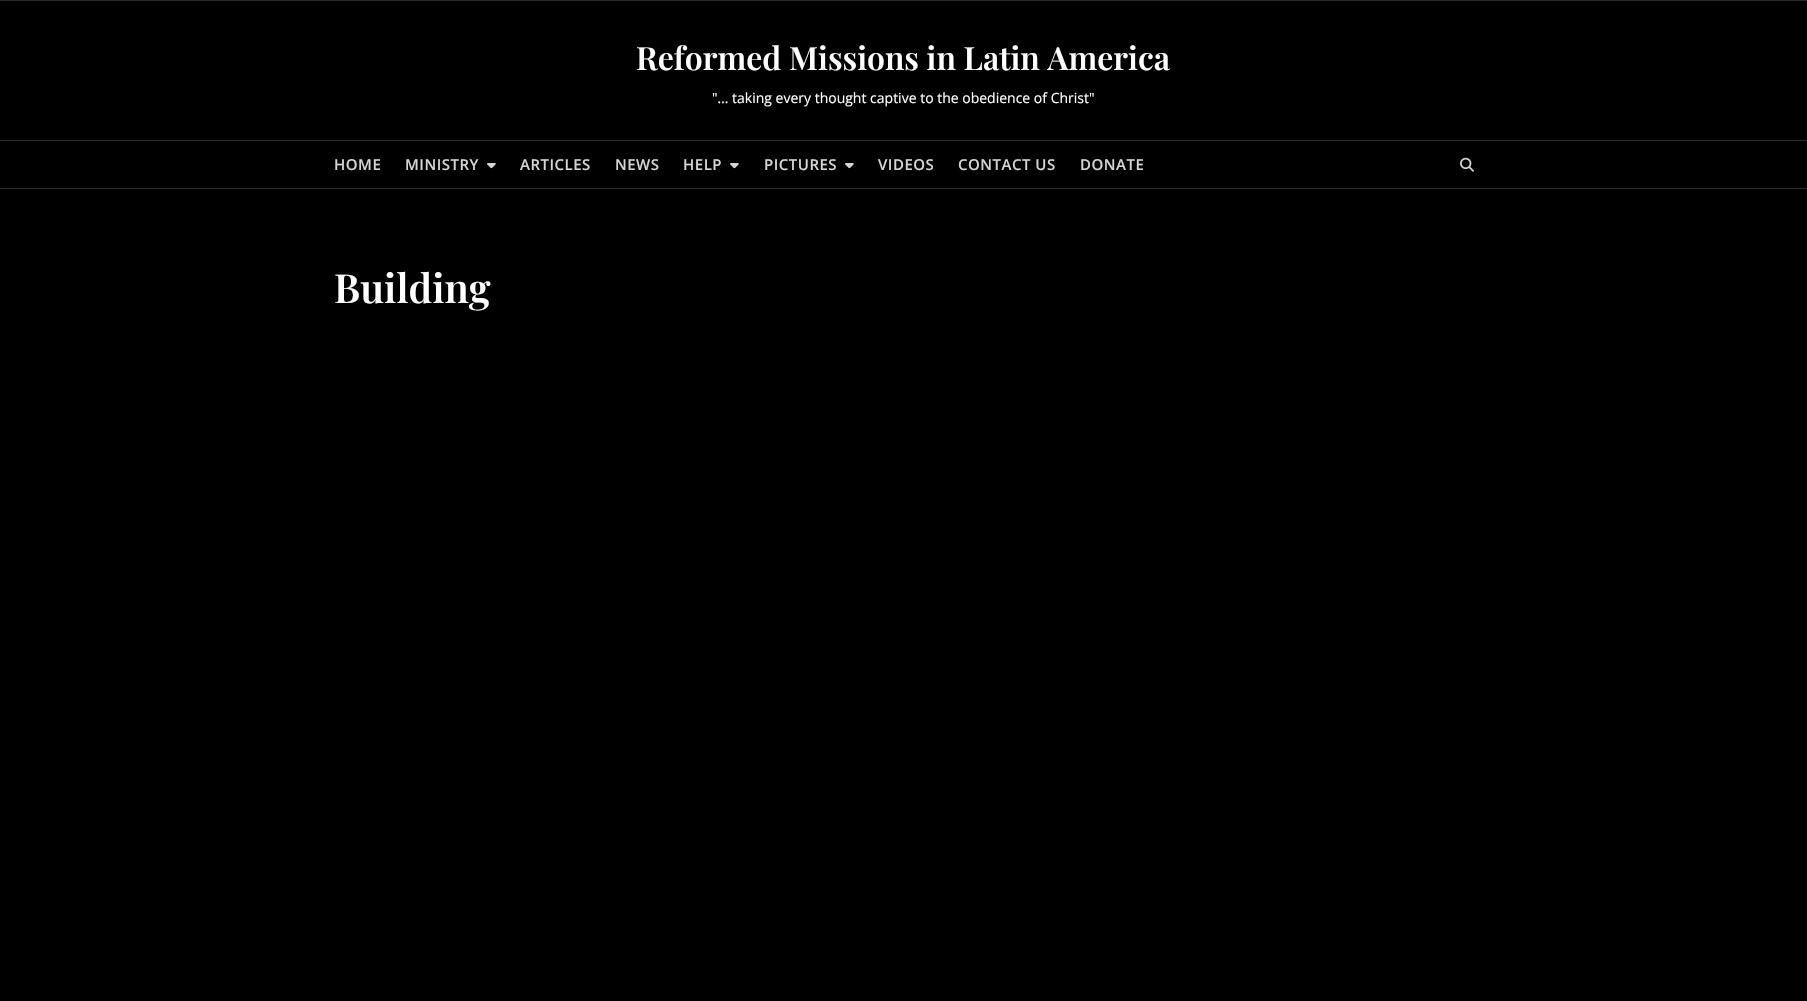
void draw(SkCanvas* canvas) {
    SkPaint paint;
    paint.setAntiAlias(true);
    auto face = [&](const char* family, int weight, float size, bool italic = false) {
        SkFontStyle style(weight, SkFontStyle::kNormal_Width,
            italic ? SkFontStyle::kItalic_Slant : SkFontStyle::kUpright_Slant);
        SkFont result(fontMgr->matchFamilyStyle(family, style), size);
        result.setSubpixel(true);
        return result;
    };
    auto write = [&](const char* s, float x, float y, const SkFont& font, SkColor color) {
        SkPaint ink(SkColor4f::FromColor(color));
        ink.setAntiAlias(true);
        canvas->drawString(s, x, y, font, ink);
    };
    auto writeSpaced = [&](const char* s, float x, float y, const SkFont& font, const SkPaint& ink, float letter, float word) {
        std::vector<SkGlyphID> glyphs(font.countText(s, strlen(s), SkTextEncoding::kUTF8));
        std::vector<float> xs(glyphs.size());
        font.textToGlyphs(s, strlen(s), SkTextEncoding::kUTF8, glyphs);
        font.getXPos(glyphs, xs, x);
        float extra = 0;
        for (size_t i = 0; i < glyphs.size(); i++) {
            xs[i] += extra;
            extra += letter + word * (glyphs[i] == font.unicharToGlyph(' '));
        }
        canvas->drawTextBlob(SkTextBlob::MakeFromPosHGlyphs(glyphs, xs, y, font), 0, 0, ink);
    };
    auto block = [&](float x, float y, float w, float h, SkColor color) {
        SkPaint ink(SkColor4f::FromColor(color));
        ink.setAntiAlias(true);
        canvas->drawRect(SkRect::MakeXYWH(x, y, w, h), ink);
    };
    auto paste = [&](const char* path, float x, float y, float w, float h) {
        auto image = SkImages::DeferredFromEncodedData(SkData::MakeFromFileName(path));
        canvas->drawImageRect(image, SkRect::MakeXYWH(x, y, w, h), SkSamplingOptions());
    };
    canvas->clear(SK_ColorBLACK);
    block(0, 0, 1807, 1, SkColorSetRGB(41, 41, 41));
    block(0, 140, 1807, 1, SkColorSetRGB(41, 41, 41));
    auto kFont1 = face("Playfair Display", 600, 32);
    write("Reformed Missions in Latin America", 636, 70, kFont1, SK_ColorWHITE);
    auto kFont2 = face("Open Sans", 400, 14);
    write("\"… taking every thought captive to the obedience of Christ\"", 712, 103, kFont2, SK_ColorWHITE);
    auto kFont3 = face("Open Sans", 600, 15);
    paint.setColor(SkColorSetRGB(213, 213, 213));
    writeSpaced("HOME", 334, 170, kFont3, paint, 0.5f, 0);
    writeSpaced("MINISTRY", 405, 170, kFont3, paint, 0.5f, 0);
    paste("pic1.png", 487, 163, 9, 6);
    writeSpaced("ARTICLES", 520, 170, kFont3, paint, 0.5f, 0);
    writeSpaced("NEWS", 615, 170, kFont3, paint, 0.5f, 0);
    writeSpaced("HELP", 683, 170, kFont3, paint, 0.5f, 0);
    paste("pic1.png", 730, 163, 9, 6);
    writeSpaced("PICTURES", 764, 170, kFont3, paint, 0.5f, 0);
    paste("pic1.png", 845, 163, 9, 6);
    writeSpaced("VIDEOS", 878, 170, kFont3, paint, 0.5f, 0);
    writeSpaced("CONTACT US", 958, 170, kFont3, paint, 0.5f, 0);
    writeSpaced("DONATE", 1080, 170, kFont3, paint, 0.5f, 0);
    paste("pic2.png", 1460, 157, 14, 15);
    block(0, 188, 1807, 1, SkColorSetRGB(41, 41, 41));
    auto kFont4 = face("Playfair Display", 600, 40);
    write("Building", 334, 303, kFont4, SK_ColorWHITE);
}
